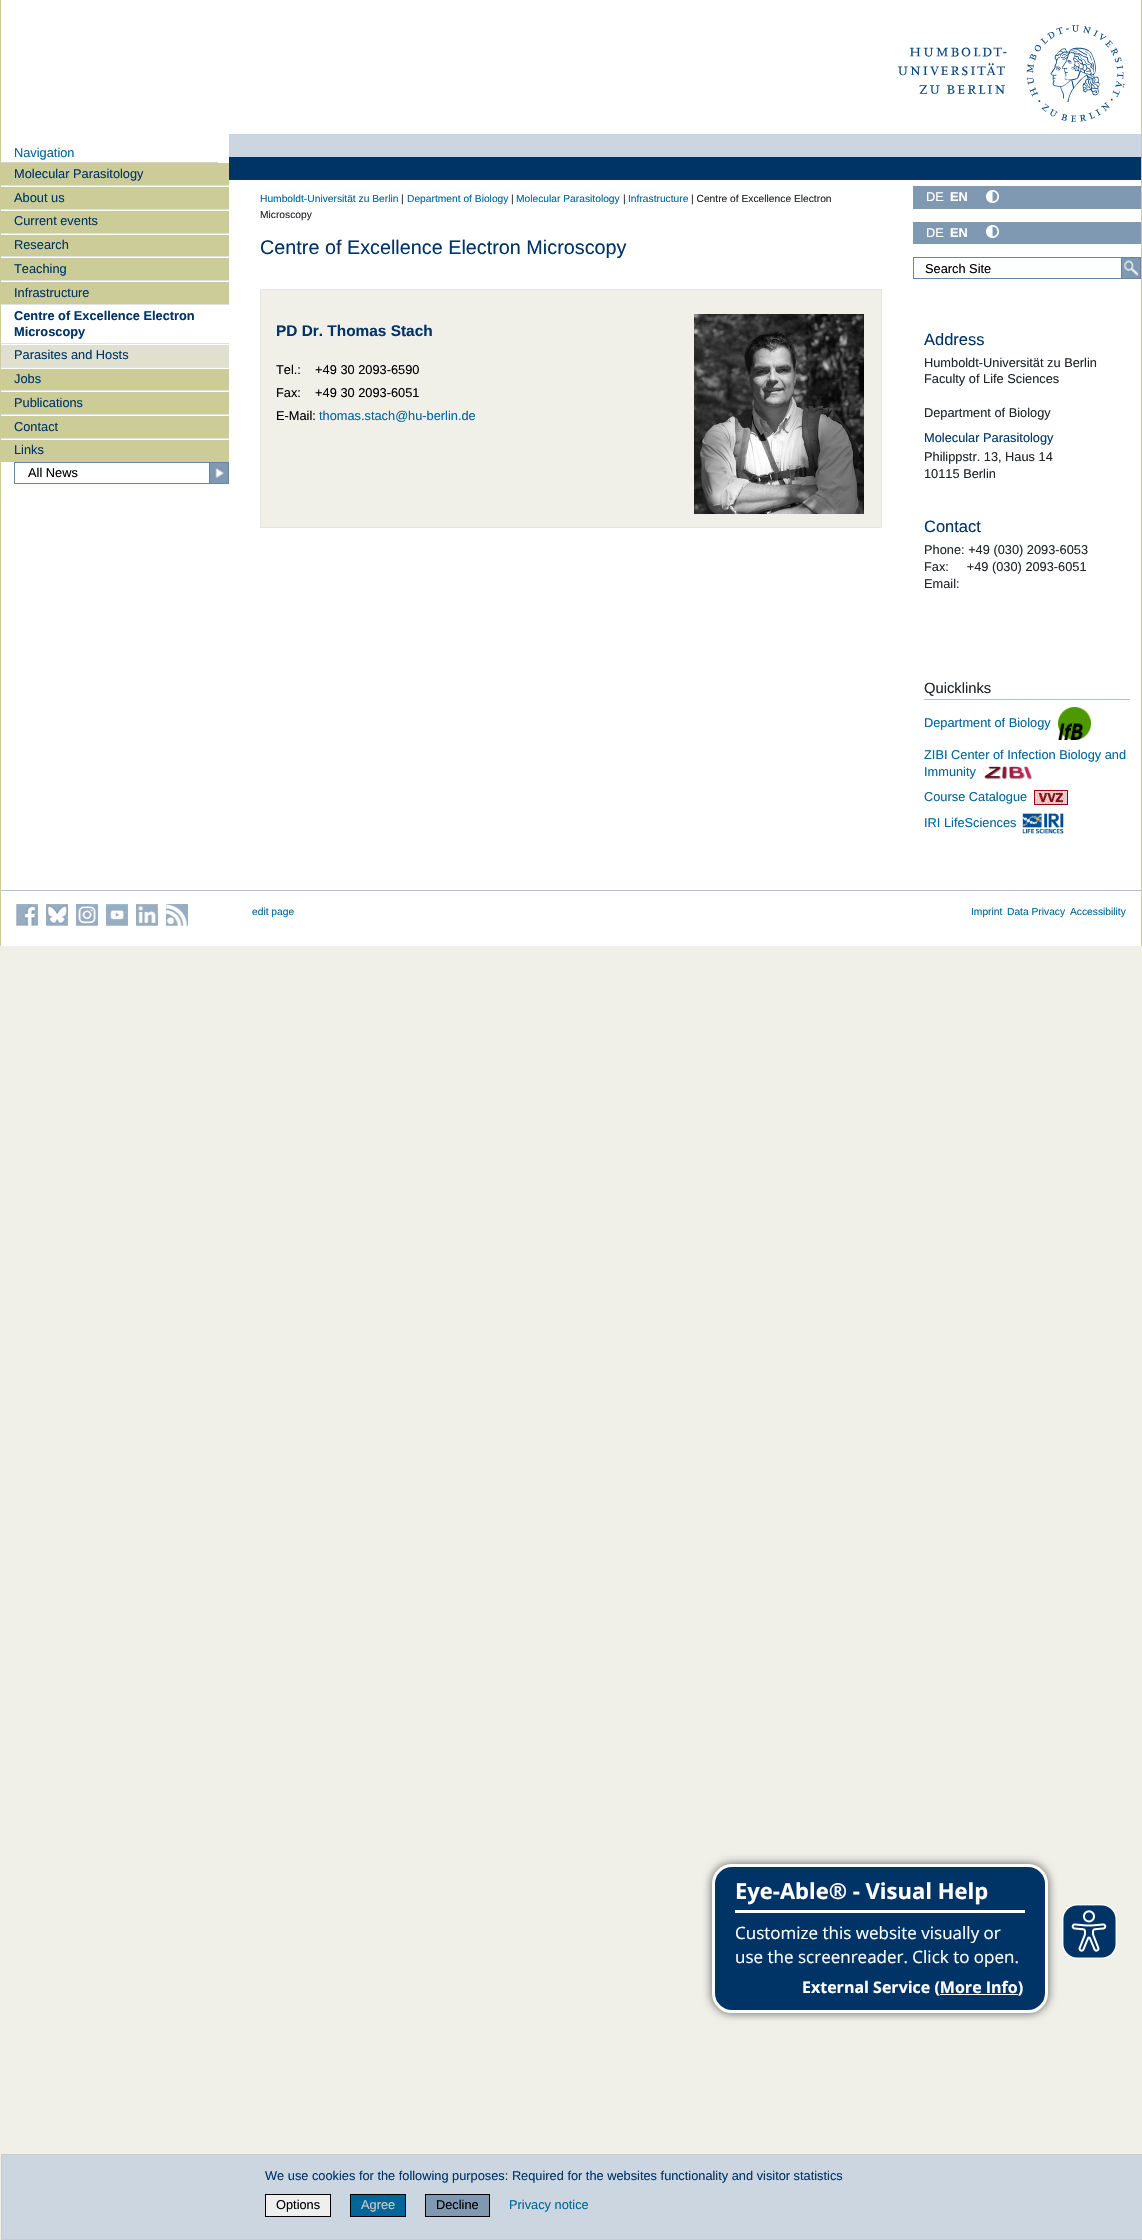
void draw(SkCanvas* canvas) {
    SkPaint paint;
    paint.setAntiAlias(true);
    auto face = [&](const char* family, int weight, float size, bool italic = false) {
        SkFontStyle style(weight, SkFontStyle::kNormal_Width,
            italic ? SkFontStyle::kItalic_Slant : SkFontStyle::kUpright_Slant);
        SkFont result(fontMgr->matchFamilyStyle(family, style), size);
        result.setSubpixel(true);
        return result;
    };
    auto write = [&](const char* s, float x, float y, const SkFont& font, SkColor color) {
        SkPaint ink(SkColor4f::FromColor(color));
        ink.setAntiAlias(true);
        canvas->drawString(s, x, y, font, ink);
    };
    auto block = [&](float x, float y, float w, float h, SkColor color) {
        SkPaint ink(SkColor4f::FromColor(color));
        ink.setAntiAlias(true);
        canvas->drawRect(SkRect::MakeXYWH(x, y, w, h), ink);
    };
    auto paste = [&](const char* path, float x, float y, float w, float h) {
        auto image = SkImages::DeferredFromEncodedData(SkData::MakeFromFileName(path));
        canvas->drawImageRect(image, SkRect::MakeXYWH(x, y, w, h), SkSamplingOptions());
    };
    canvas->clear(SkColorSetRGB(240, 240, 232));
    block(1, 0, 1140, 946, SK_ColorWHITE);
    paste("pic1.png", 898, 25, 227, 97);
    block(1141, 0, 1, 946, SkColorSetRGB(204, 204, 153));
    block(0, 0, 1, 946, SkColorSetRGB(204, 204, 153));
    block(1, 162, 217, 1, SkColorSetRGB(210, 210, 210));
    auto kFont1 = face("Liberation Sans", 400, 12.8f);
    write("Navigation", 14, 157, kFont1, SkColorSetRGB(0, 102, 153));
    block(1, 163, 228, 22, SkColorSetRGB(204, 204, 153));
    write("Molecular Parasitology", 14, 178, kFont1, SkColorSetRGB(0, 51, 102));
    block(1, 187, 228, 22, SkColorSetRGB(204, 204, 153));
    block(1, 185, 228, 1, SkColorSetRGB(222, 226, 230));
    write("About us", 14, 202, kFont1, SkColorSetRGB(0, 51, 102));
    block(1, 211, 228, 22, SkColorSetRGB(204, 204, 153));
    block(1, 209, 228, 1, SkColorSetRGB(222, 226, 230));
    write("Current events", 14, 225, kFont1, SkColorSetRGB(0, 51, 102));
    block(1, 235, 228, 21, SkColorSetRGB(204, 204, 153));
    block(1, 233, 228, 1, SkColorSetRGB(222, 226, 230));
    write("Research", 14, 249, kFont1, SkColorSetRGB(0, 51, 102));
    block(1, 258, 228, 22, SkColorSetRGB(204, 204, 153));
    block(1, 256, 228, 1, SkColorSetRGB(222, 226, 230));
    write("Teaching", 14, 273, kFont1, SkColorSetRGB(0, 51, 102));
    block(1, 282, 228, 22, SkColorSetRGB(204, 204, 153));
    block(1, 280, 228, 1, SkColorSetRGB(222, 226, 230));
    write("Infrastructure", 14, 297, kFont1, SkColorSetRGB(0, 51, 102));
    block(1, 304, 228, 1, SkColorSetRGB(222, 226, 230));
    auto kFont2 = face("Liberation Sans", 700, 12.8f);
    write("Centre of Excellence Electron", 14, 320, kFont2, SkColorSetRGB(0, 51, 102));
    write("Microscopy", 14, 336, kFont2, SkColorSetRGB(0, 51, 102));
    block(1, 345, 228, 22, SkColorSetRGB(224, 224, 209));
    block(1, 343, 228, 1, SkColorSetRGB(222, 226, 230));
    write("Parasites and Hosts", 14, 359, kFont1, SkColorSetRGB(0, 51, 102));
    block(1, 369, 228, 21, SkColorSetRGB(204, 204, 153));
    block(1, 367, 228, 1, SkColorSetRGB(222, 226, 230));
    write("Jobs", 14, 383, kFont1, SkColorSetRGB(0, 51, 102));
    block(1, 392, 228, 22, SkColorSetRGB(204, 204, 153));
    block(1, 390, 228, 1, SkColorSetRGB(222, 226, 230));
    write("Publications", 14, 407, kFont1, SkColorSetRGB(0, 51, 102));
    block(1, 416, 228, 22, SkColorSetRGB(204, 204, 153));
    block(1, 414, 228, 1, SkColorSetRGB(222, 226, 230));
    write("Contact", 14, 431, kFont1, SkColorSetRGB(0, 51, 102));
    block(1, 440, 228, 22, SkColorSetRGB(204, 204, 153));
    block(1, 438, 228, 1, SkColorSetRGB(222, 226, 230));
    write("Links", 14, 454, kFont1, SkColorSetRGB(0, 51, 102));
    paint.setStyle(SkPaint::kStroke_Style);
    paint.setStrokeWidth(1);
    paint.setColor(SkColorSetRGB(102, 133, 163));
    canvas->drawRect(SkRect::MakeXYWH(14.5f, 462.5f, 201, 21), paint);
    write("All News", 28, 477, kFont1, SK_ColorBLACK);
    canvas->drawRect(SkRect::MakeXYWH(209.5f, 462.5f, 19, 21), paint);
    paste("pic2.png", 210, 463, 18, 20);
    block(229, 134, 912, 23, SkColorSetRGB(204, 214, 224));
    block(229, 157, 912, 23, SkColorSetRGB(0, 51, 102));
    auto kFont3 = face("Liberation Sans", 400, 10.25f);
    write("Humboldt-Universität zu Berlin", 260, 202, kFont3, SkColorSetRGB(0, 102, 153));
    write("|", 401, 202, kFont3, SkColorSetRGB(33, 37, 41));
    write("Department of Biology", 407, 202, kFont3, SkColorSetRGB(0, 102, 153));
    write("|", 511, 202, kFont3, SkColorSetRGB(33, 37, 41));
    write("Molecular Parasitology", 516, 202, kFont3, SkColorSetRGB(0, 102, 153));
    write("|", 623, 202, kFont3, SkColorSetRGB(33, 37, 41));
    write("Infrastructure", 628, 202, kFont3, SkColorSetRGB(0, 102, 153));
    write("| Centre of Excellence Electron", 691, 202, kFont3, SkColorSetRGB(33, 37, 41));
    write("Microscopy", 260, 218, kFont3, SkColorSetRGB(33, 37, 41));
    auto kFont4 = face("Liberation Sans", 400, 19.8f);
    write("Centre of Excellence Electron Microscopy", 260, 254, kFont4, SkColorSetRGB(0, 51, 102));
    block(261, 290, 620, 237, SkColorSetRGB(240, 240, 232));
    block(260, 289, 622, 1, SkColorSetRGB(229, 229, 229));
    block(881, 289, 1, 239, SkColorSetRGB(229, 229, 229));
    block(260, 527, 622, 1, SkColorSetRGB(229, 229, 229));
    block(260, 289, 1, 239, SkColorSetRGB(229, 229, 229));
    auto kFont5 = face("Liberation Sans", 700, 15.4f);
    write("PD Dr. Thomas Stach", 276, 336, kFont5, SkColorSetRGB(0, 51, 102));
    paste("pic3.png", 694, 314, 170, 200);
    write("Tel.:    +49 30 2093-6590", 276, 374, kFont1, SK_ColorBLACK);
    write("Fax:    +49 30 2093-6051", 276, 397, kFont1, SK_ColorBLACK);
    write("E-Mail:", 276, 420, kFont1, SK_ColorBLACK);
    write("thomas.stach@hu-berlin.de", 319, 420, kFont1, SkColorSetRGB(0, 102, 153));
    block(913, 186, 228, 23, SkColorSetRGB(128, 153, 178));
    write("DE", 926, 201, kFont1, SK_ColorWHITE);
    write("EN", 950, 201, kFont2, SK_ColorWHITE);
    paste("pic4.png", 986, 190, 13, 13);
    block(913, 222, 228, 22, SkColorSetRGB(128, 153, 178));
    write("DE", 926, 237, kFont1, SK_ColorWHITE);
    write("EN", 950, 237, kFont2, SK_ColorWHITE);
    paste("pic4.png", 986, 225, 13, 13);
    canvas->drawRect(SkRect::MakeXYWH(913.5f, 257.5f, 227, 21), paint);
    write("Search Site", 925, 273, kFont1, SK_ColorBLACK);
    canvas->drawRect(SkRect::MakeXYWH(1121.5f, 257.5f, 19, 21), paint);
    paste("pic5.png", 1122, 258, 18, 20);
    auto kFont6 = face("Liberation Sans", 400, 16.5f);
    write("Address", 924, 345, kFont6, SkColorSetRGB(0, 51, 102));
    write("Humboldt-Universität zu Berlin", 924, 367, kFont1, SkColorSetRGB(33, 37, 41));
    write("Faculty of Life Sciences", 924, 383, kFont1, SkColorSetRGB(33, 37, 41));
    write("Department of Biology", 924, 417, kFont1, SkColorSetRGB(33, 37, 41));
    write("Molecular Parasitology", 924, 442, kFont1, SkColorSetRGB(0, 51, 102));
    write("Philippstr. 13, Haus 14", 924, 461, kFont1, SkColorSetRGB(33, 37, 41));
    write("10115 Berlin", 924, 478, kFont1, SkColorSetRGB(33, 37, 41));
    write("Contact", 924, 532, kFont6, SkColorSetRGB(0, 51, 102));
    write("Phone: +49 (030) 2093-6053", 924, 554, kFont1, SkColorSetRGB(33, 37, 41));
    write("Fax:     +49 (030) 2093-6051", 924, 571, kFont1, SkColorSetRGB(33, 37, 41));
    write("Email:", 924, 588, kFont1, SkColorSetRGB(33, 37, 41));
    block(924, 699, 206, 1, SkColorSetRGB(178, 193, 209));
    auto kFont7 = face("Liberation Sans", 400, 14.75f);
    write("Quicklinks", 924, 693, kFont7, SkColorSetRGB(33, 37, 41));
    write("Department of Biology", 924, 727, kFont1, SkColorSetRGB(0, 102, 153));
    paste("pic6.png", 1058, 707, 33, 33);
    write("ZIBI Center of Infection Biology and", 924, 759, kFont1, SkColorSetRGB(0, 102, 153));
    write("Immunity", 924, 776, kFont1, SkColorSetRGB(0, 102, 153));
    paste("pic7.png", 983, 766, 50, 14);
    write("Course Catalogue", 924, 801, kFont1, SkColorSetRGB(0, 102, 153));
    paste("pic8.png", 1034, 790, 34, 15);
    write("IRI LifeSciences", 924, 827, kFont1, SkColorSetRGB(0, 102, 153));
    paste("pic9.png", 1021, 813, 43, 21);
    block(1, 890, 1140, 1, SkColorSetRGB(178, 193, 209));
    paste("pic10.png", 16, 904, 22, 22);
    paste("pic11.png", 46, 904, 22, 22);
    paste("pic12.png", 76, 904, 22, 22);
    paste("pic13.png", 106, 904, 22, 22);
    paste("pic14.png", 136, 904, 22, 22);
    paste("pic15.png", 166, 904, 22, 22);
    write("edit page", 252, 915, kFont3, SkColorSetRGB(0, 102, 153));
    write("Imprint", 971, 915, kFont3, SkColorSetRGB(0, 102, 153));
    write("Data Privacy", 1007, 915, kFont3, SkColorSetRGB(0, 102, 153));
    write("Accessibility", 1070, 915, kFont3, SkColorSetRGB(0, 102, 153));
    paint.setStyle(SkPaint::kFill_Style);
    paint.setColor(SkColorSetRGB(204, 214, 224));
    canvas->drawRect(SkRect::MakeXYWH(1.5f, 2154.5f, 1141, 85), paint);
    paint.setStyle(SkPaint::kStroke_Style);
    paint.setColor(SkColorSetRGB(204, 204, 204));
    canvas->drawRect(SkRect::MakeXYWH(1.5f, 2154.5f, 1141, 85), paint);
    write("We use cookies for the following purposes: Required for the websites functionality and visitor statistics", 265, 2180, kFont1, SkColorSetRGB(0, 51, 102));
    paint.setStyle(SkPaint::kFill_Style);
    paint.setColor(SkColorSetRGB(239, 239, 239));
    canvas->drawRect(SkRect::MakeXYWH(265.5f, 2194.5f, 65, 22), paint);
    paint.setStyle(SkPaint::kStroke_Style);
    paint.setColor(SK_ColorBLACK);
    canvas->drawRect(SkRect::MakeXYWH(265.5f, 2194.5f, 65, 22), paint);
    write("Options", 276, 2209, kFont1, SK_ColorBLACK);
    paint.setStyle(SkPaint::kFill_Style);
    paint.setColor(SkColorSetRGB(0, 102, 153));
    canvas->drawRect(SkRect::MakeXYWH(350.5f, 2194.5f, 55, 22), paint);
    paint.setStyle(SkPaint::kStroke_Style);
    paint.setColor(SK_ColorBLACK);
    canvas->drawRect(SkRect::MakeXYWH(350.5f, 2194.5f, 55, 22), paint);
    write("Agree", 361, 2209, kFont1, SkColorSetRGB(213, 199, 199));
    paint.setStyle(SkPaint::kFill_Style);
    paint.setColor(SkColorSetRGB(128, 153, 178));
    canvas->drawRect(SkRect::MakeXYWH(425.5f, 2194.5f, 64, 22), paint);
    paint.setStyle(SkPaint::kStroke_Style);
    paint.setColor(SK_ColorBLACK);
    canvas->drawRect(SkRect::MakeXYWH(425.5f, 2194.5f, 64, 22), paint);
    write("Decline", 436, 2209, kFont1, SK_ColorBLACK);
    write("Privacy notice", 509, 2209, kFont1, SkColorSetRGB(0, 102, 153));
    paint.setStyle(SkPaint::kFill_Style);
    paint.setColor(SkColorSetARGB(128, 0, 0, 0));
    paint.setMaskFilter(SkMaskFilter::MakeBlur(kNormal_SkBlurStyle, 4));
    canvas->drawRoundRect(SkRect::MakeXYWH(711, 1863, 338, 151), 21, 21, paint);
    paint.setMaskFilter(nullptr);
    paint.setColor(SkColorSetRGB(0, 51, 102));
    canvas->drawRoundRect(SkRect::MakeXYWH(713.5f, 1865.5f, 333, 146), 18.5f, 18.5f, paint);
    paint.setStyle(SkPaint::kStroke_Style);
    paint.setStrokeWidth(3);
    paint.setColor(SK_ColorWHITE);
    canvas->drawRoundRect(SkRect::MakeXYWH(713.5f, 1865.5f, 333, 146), 18.5f, 18.5f, paint);
    block(735, 1910, 290, 3, SK_ColorWHITE);
    auto kFont8 = face("Open Sans", 700, 22);
    write("Eye-Able® - Visual Help", 735, 1899, kFont8, SK_ColorWHITE);
    auto kFont9 = face("Open Sans", 400, 17);
    write("Customize this website visually or", 735, 1939, kFont9, SK_ColorWHITE);
    write("use the screenreader. Click to open.", 735, 1963, kFont9, SK_ColorWHITE);
    auto kFont10 = face("Open Sans", 700, 16);
    write("External Service (More Info)", 802, 1993, kFont10, SK_ColorWHITE);
    block(940, 1994, 78, 1, SK_ColorWHITE);
    paste("pic16.png", 1062, 1904, 55, 55);
}
